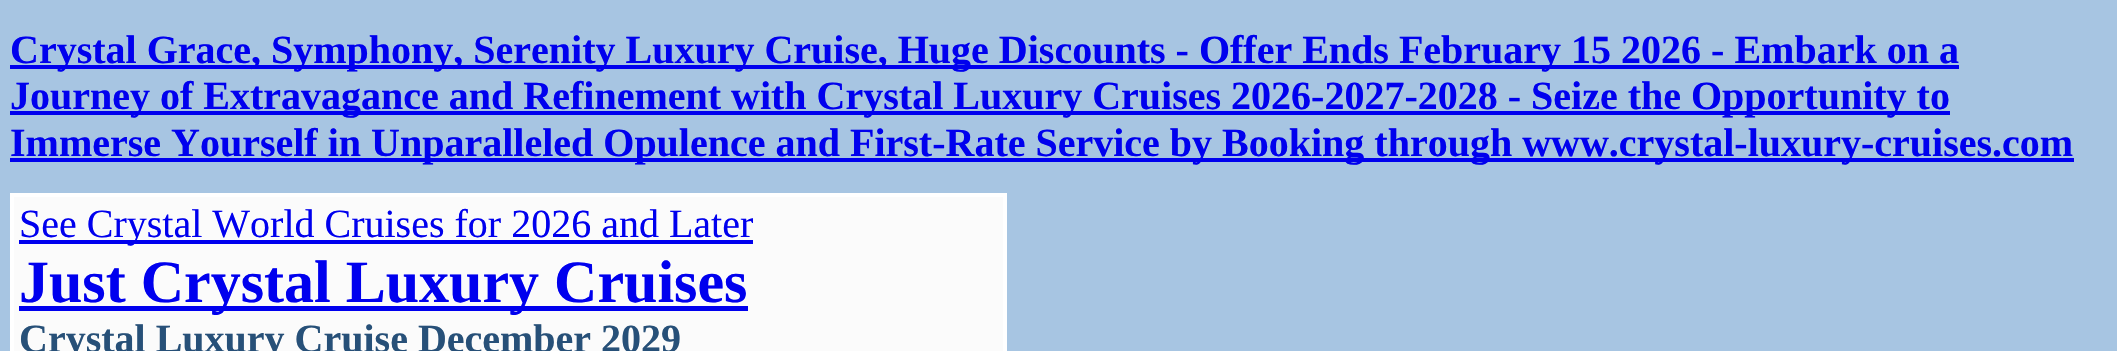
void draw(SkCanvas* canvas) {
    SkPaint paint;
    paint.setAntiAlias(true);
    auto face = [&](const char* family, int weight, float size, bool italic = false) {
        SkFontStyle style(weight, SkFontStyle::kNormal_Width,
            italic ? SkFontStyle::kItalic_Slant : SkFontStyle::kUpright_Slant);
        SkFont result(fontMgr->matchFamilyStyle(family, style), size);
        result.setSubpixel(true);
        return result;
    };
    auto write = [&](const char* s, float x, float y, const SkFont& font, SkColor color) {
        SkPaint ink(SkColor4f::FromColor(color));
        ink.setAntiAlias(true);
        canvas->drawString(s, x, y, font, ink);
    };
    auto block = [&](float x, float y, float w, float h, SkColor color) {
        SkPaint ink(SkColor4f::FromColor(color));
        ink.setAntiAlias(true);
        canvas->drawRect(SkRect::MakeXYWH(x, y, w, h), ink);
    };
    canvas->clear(SkColorSetRGB(167, 197, 226));
    block(10, 65, 1949, 4, SkColorSetRGB(0, 0, 238));
    auto kFont1 = face("Liberation Serif", 700, 40);
    write("Crystal Grace, Symphony, Serenity Luxury Cruise, Huge Discounts - Offer Ends February 15 2026 - Embark on a", 10, 63, kFont1, SkColorSetRGB(0, 0, 238));
    block(10, 111, 1940, 4, SkColorSetRGB(0, 0, 238));
    write("Journey of Extravagance and Refinement with Crystal Luxury Cruises 2026-2027-2028 - Seize the Opportunity to", 10, 109, kFont1, SkColorSetRGB(0, 0, 238));
    block(10, 158, 2064, 4, SkColorSetRGB(0, 0, 238));
    write("Immerse Yourself in Unparalleled Opulence and First-Rate Service by Booking through www.crystal-luxury-cruises.com", 10, 156, kFont1, SkColorSetRGB(0, 0, 238));
    block(14, 197, 989, 154, SkColorSetRGB(251, 251, 251));
    block(10, 193, 996, 4, SK_ColorWHITE);
    block(1003, 193, 4, 158, SK_ColorWHITE);
    block(10, 193, 4, 158, SK_ColorWHITE);
    block(19, 240, 734, 4, SkColorSetRGB(0, 0, 238));
    auto kFont2 = face("Liberation Serif", 400, 40);
    write("See Crystal World Cruises for 2026 and Later", 19, 237, kFont2, SkColorSetRGB(0, 0, 238));
    block(19, 306, 729, 5, SkColorSetRGB(0, 0, 238));
    auto kFont3 = face("Liberation Serif", 700, 60);
    write("Just Crystal Luxury Cruises", 19, 302, kFont3, SkColorSetRGB(0, 0, 238));
    write("Crystal Luxury Cruise December 2029", 19, 352, kFont1, SkColorSetRGB(39, 80, 120));
}
